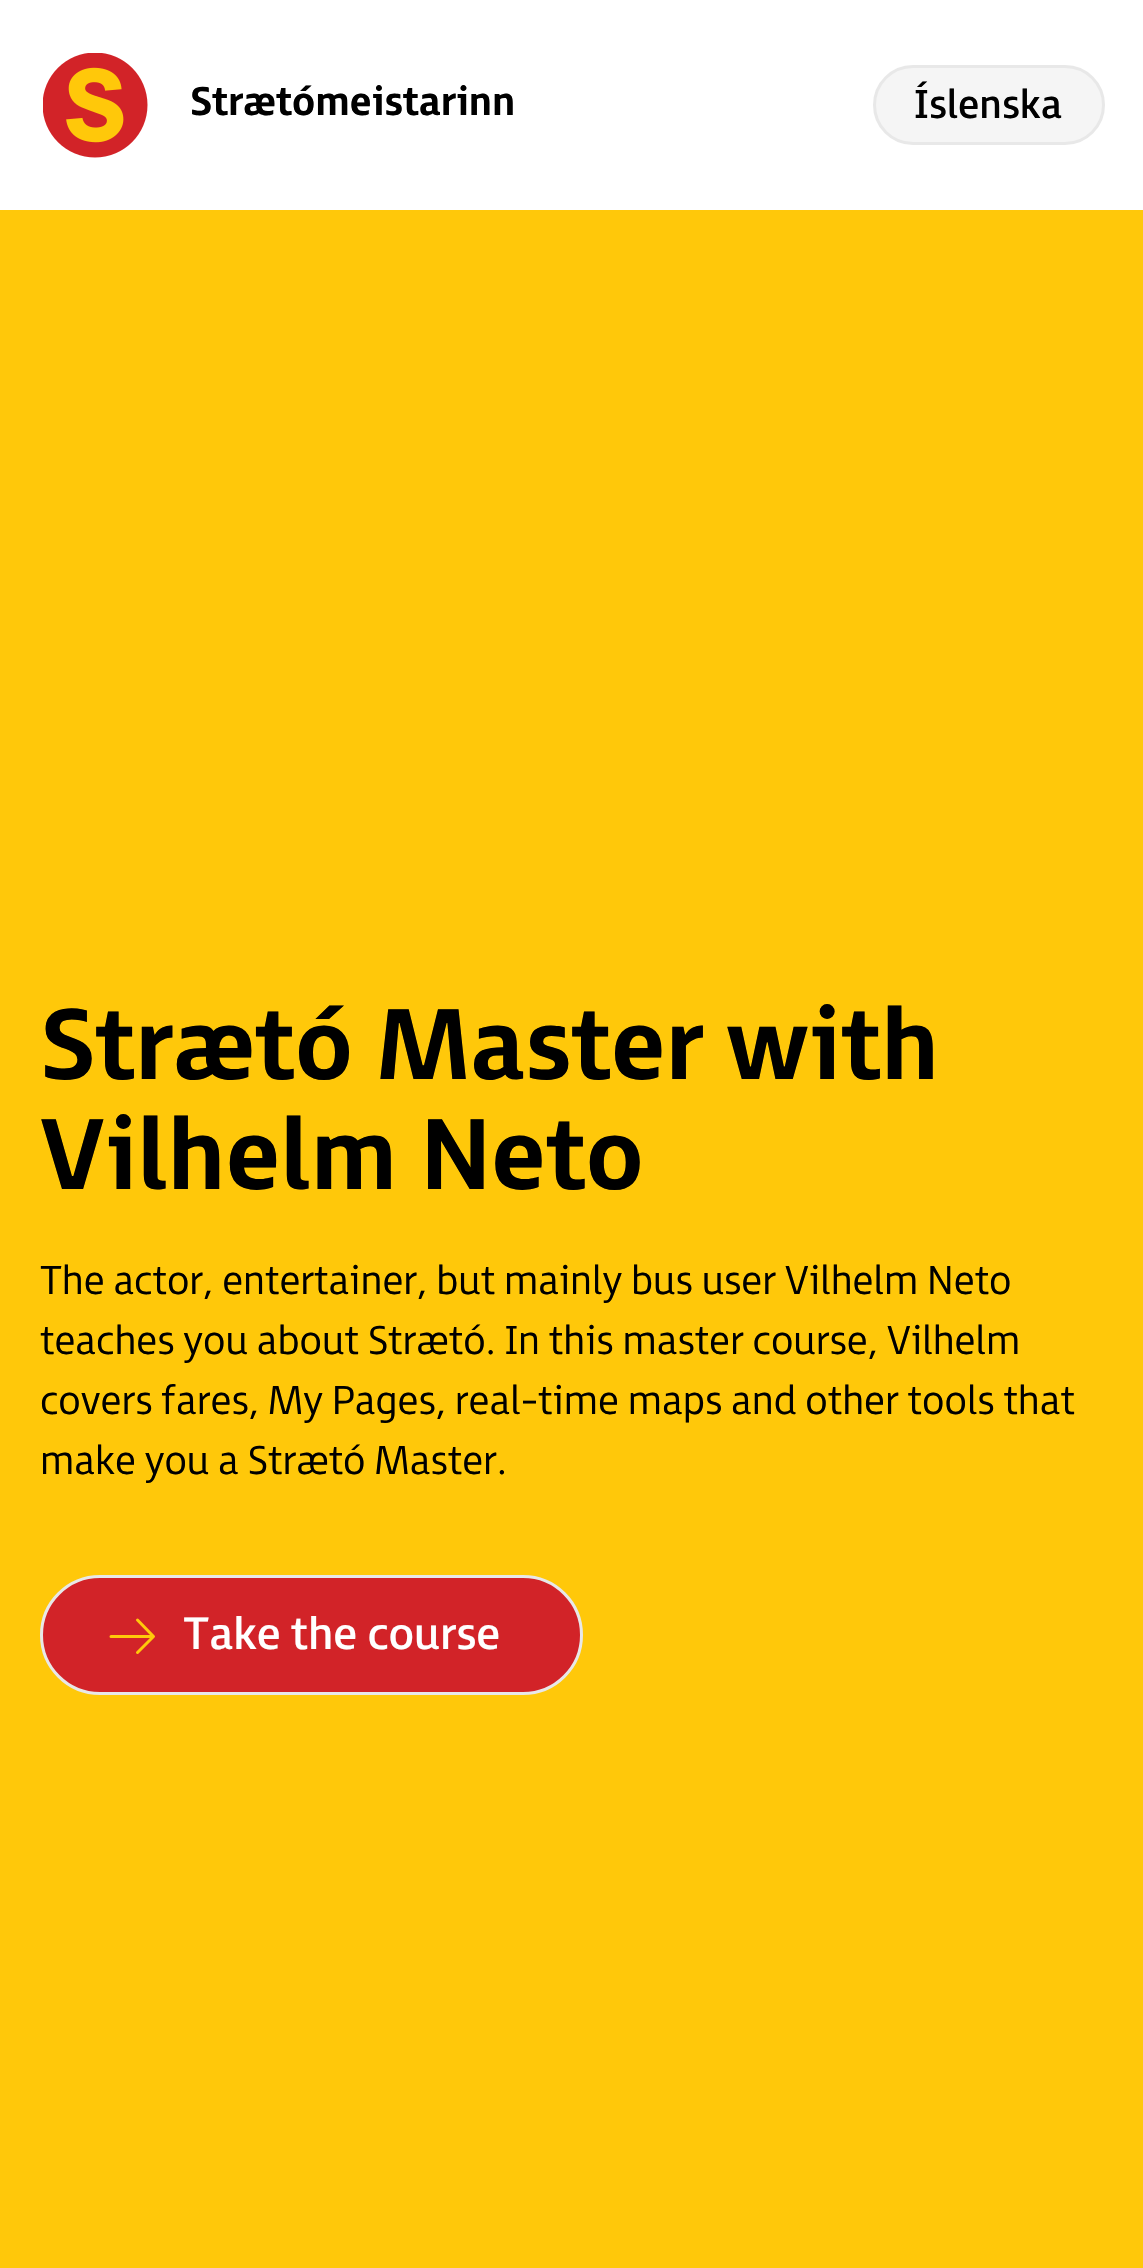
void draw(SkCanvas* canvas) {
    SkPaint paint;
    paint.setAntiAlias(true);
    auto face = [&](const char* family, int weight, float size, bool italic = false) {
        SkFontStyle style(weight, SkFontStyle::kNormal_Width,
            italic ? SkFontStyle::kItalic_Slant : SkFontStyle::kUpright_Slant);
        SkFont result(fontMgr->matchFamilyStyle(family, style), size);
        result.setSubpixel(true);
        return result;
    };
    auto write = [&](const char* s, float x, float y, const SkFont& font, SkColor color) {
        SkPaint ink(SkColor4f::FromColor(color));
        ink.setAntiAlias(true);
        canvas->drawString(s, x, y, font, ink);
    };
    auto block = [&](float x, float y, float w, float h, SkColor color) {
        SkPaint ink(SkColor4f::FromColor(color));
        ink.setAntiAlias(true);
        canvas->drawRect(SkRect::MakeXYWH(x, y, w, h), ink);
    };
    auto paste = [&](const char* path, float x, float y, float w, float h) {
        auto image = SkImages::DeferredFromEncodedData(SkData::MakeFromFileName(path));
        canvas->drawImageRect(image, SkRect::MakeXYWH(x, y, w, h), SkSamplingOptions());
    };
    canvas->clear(SK_ColorWHITE);
    paste("pic1.png", 43, 53, 105, 105);
    auto kFont1 = face("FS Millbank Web", 700, 40);
    write("Strætómeistarinn", 190, 115, kFont1, SK_ColorBLACK);
    paint.setColor(SkColorSetRGB(245, 245, 245));
    canvas->drawRoundRect(SkRect::MakeXYWH(874.5f, 66.5f, 229, 77), 38.5f, 38.5f, paint);
    paint.setStyle(SkPaint::kStroke_Style);
    paint.setStrokeWidth(3);
    paint.setColor(SkColorSetRGB(232, 232, 232));
    canvas->drawRoundRect(SkRect::MakeXYWH(874.5f, 66.5f, 229, 77), 38.5f, 38.5f, paint);
    auto kFont2 = face("FS Millbank Web", 400, 40);
    write("Íslenska", 914, 118, kFont2, SK_ColorBLACK);
    block(0, 210, 1143, 2058, SkColorSetRGB(255, 200, 10));
    auto kFont3 = face("FS Millbank Web", 700, 100);
    write("Strætó Master with", 40, 1079, kFont3, SK_ColorBLACK);
    write("Vilhelm Neto", 40, 1189, kFont3, SK_ColorBLACK);
    auto kFont4 = face("FS Millbank Web", 300, 40);
    write("The actor, entertainer, but mainly bus user Vilhelm Neto", 40, 1294, kFont4, SK_ColorBLACK);
    write("teaches you about Strætó. In this master course, Vilhelm", 40, 1354, kFont4, SK_ColorBLACK);
    write("covers fares, My Pages, real-time maps and other tools that", 40, 1414, kFont4, SK_ColorBLACK);
    write("make you a Strætó Master.", 40, 1474, kFont4, SK_ColorBLACK);
    paint.setStyle(SkPaint::kFill_Style);
    paint.setColor(SkColorSetRGB(210, 35, 40));
    canvas->drawRoundRect(SkRect::MakeXYWH(41.5f, 1576.5f, 540, 117), 58.5f, 58.5f, paint);
    paint.setStyle(SkPaint::kStroke_Style);
    paint.setColor(SkColorSetRGB(232, 232, 232));
    canvas->drawRoundRect(SkRect::MakeXYWH(41.5f, 1576.5f, 540, 117), 58.5f, 58.5f, paint);
    paint.setStrokeCap(SkPaint::kRound_Cap);
    paint.setStrokeJoin(SkPaint::kRound_Join);
    paint.setColor(SkColorSetRGB(255, 200, 10));
    canvas->drawPath(SkPathBuilder().moveTo(137.5f, 1620).lineTo(153.5f, 1636.5f).lineTo(137.5f, 1652.5f).moveTo(152.5f, 1636.5f).lineTo(111, 1636.5f).detach(), paint);
    auto kFont5 = face("FS Millbank Web", 400, 45);
    write("Take the course", 183, 1649, kFont5, SK_ColorWHITE);
}
